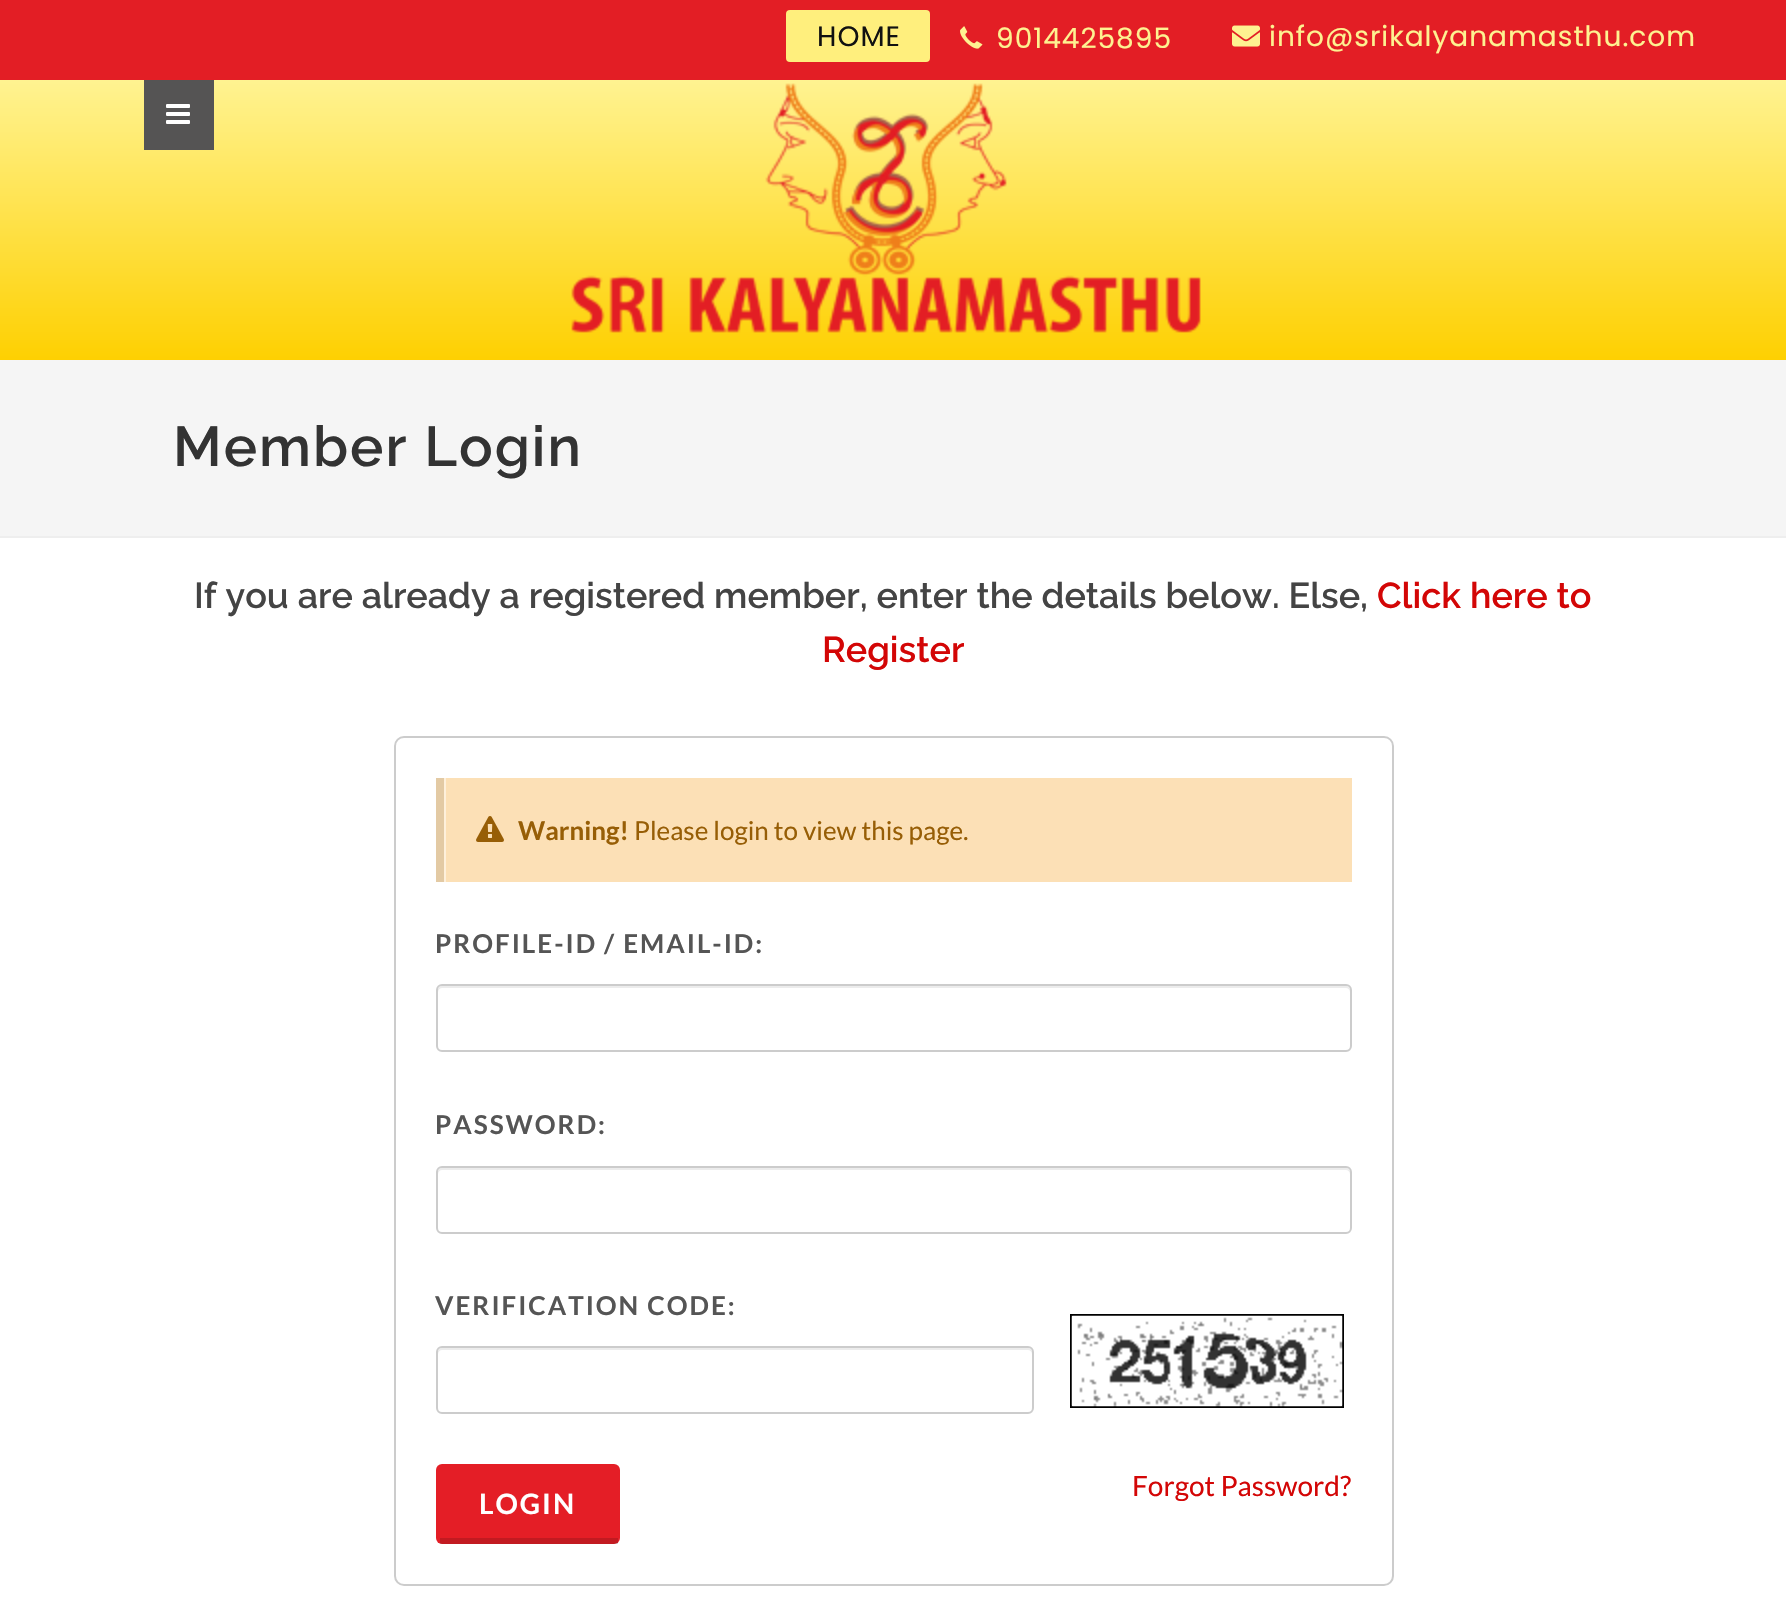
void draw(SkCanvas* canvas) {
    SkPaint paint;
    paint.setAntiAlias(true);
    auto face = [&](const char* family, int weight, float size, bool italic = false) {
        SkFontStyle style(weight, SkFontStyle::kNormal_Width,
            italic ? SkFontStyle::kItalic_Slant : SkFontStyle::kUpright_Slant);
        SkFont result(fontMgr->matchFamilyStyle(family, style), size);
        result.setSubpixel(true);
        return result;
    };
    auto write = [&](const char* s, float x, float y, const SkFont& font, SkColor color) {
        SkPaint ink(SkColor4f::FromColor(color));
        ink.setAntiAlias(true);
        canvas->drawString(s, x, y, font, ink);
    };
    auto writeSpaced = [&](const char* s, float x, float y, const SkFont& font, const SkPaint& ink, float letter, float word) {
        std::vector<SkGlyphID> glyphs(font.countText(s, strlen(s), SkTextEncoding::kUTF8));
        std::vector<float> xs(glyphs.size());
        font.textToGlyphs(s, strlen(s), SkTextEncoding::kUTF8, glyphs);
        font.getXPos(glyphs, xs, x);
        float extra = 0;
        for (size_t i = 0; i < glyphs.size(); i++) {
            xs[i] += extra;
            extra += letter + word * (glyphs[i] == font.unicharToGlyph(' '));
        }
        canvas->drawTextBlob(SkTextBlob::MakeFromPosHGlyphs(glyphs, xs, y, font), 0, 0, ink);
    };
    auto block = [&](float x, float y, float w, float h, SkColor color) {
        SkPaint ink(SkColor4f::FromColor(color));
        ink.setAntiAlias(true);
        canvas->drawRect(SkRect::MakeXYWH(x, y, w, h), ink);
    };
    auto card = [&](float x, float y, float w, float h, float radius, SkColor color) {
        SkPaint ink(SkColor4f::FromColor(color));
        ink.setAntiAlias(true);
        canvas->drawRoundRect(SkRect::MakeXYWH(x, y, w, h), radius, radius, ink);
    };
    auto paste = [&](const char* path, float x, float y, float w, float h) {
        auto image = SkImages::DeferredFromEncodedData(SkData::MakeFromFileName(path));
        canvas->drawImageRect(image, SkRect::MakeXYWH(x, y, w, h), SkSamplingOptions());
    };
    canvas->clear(SK_ColorWHITE);
    block(0, 0, 1786, 80, SkColorSetRGB(227, 30, 37));
    card(786, 10, 144, 52, 4, SkColorSetRGB(255, 239, 125));
    auto kFont1 = face("Poppins", 400, 28);
    paint.setColor(SkColorSetRGB(17, 17, 17));
    writeSpaced("HOME", 817, 46, kFont1, paint, 1, 0);
    paste("pic1.png", 960, 26, 23, 23);
    paint.setColor(SkColorSetRGB(254, 242, 145));
    writeSpaced("9014425895", 996, 48, kFont1, paint, 1, 0);
    paste("pic2.png", 1232, 25, 28, 22);
    writeSpaced("info@srikalyanamasthu.com", 1269, 46, kFont1, paint, 1, 0);
    {
        const SkColor colors[] = {SkColorSetRGB(255, 243, 145), SkColorSetRGB(254, 208, 1)};
        const float stops[] = {0, 1};
        const SkPoint ends[] = {{893, 80}, {893, 360}};
        paint.setShader(SkGradientShader::MakeLinear(ends, colors, stops, 2, SkTileMode::kClamp));
        paint.setAlpha(255);
    }
    canvas->drawRect(SkRect::MakeXYWH(0, 80, 1786, 280), paint);
    block(144, 80, 70, 70, SkColorSetRGB(85, 84, 84));
    paste("pic3.png", 166, 104, 24, 20);
    paste("pic4.png", 571, 83, 630, 250);
    block(0, 360, 1786, 176, SkColorSetRGB(245, 245, 245));
    block(0, 536, 1786, 2, SkColorSetRGB(238, 238, 238));
    auto kFont2 = face("Raleway", 600, 56);
    paint.setShader(nullptr);
    paint.setColor(SkColorSetRGB(51, 51, 51));
    writeSpaced("Member Login", 173, 466, kFont2, paint, 2, 0);
    auto kFont3 = face("Raleway", 600, 36);
    write("If you are already a registered member, enter the details below. Else,", 194, 608, kFont3, SkColorSetRGB(68, 68, 68));
    write("Click here to", 1377, 608, kFont3, SkColorSetRGB(211, 6, 6));
    write("Register", 822, 662, kFont3, SkColorSetRGB(211, 6, 6));
    paint.setStyle(SkPaint::kStroke_Style);
    paint.setStrokeWidth(2);
    paint.setColor(SkColorSetRGB(204, 204, 204));
    canvas->drawRoundRect(SkRect::MakeXYWH(395, 737, 998, 848), 9, 9, paint);
    block(446, 778, 906, 104, SkColorSetRGB(252, 224, 182));
    block(436, 778, 8, 104, SkColorSetRGB(227, 202, 164));
    block(444, 778, 2, 104, SkColorSetRGB(254, 240, 219));
    paste("pic5.png", 476, 816, 28, 26);
    auto kFont4 = face("Lato", 700, 26);
    write("Warning!", 518, 840, kFont4, SkColorSetRGB(151, 94, 6));
    auto kFont5 = face("Lato", 400, 26);
    write("Please login to view this page.", 634, 840, kFont5, SkColorSetRGB(151, 94, 6));
    paint.setStyle(SkPaint::kFill_Style);
    paint.setColor(SkColorSetRGB(85, 85, 85));
    writeSpaced("PROFILE-ID / EMAIL-ID:", 435, 953, kFont4, paint, 2, 0);
    paint.setColor(SkColorSetRGB(236, 236, 236));
    canvas->drawPath(SkPathBuilder().moveTo(442, 988).lineTo(1346, 988).cubicTo(1348, 988, 1350, 990, 1350, 992).lineTo(1350, 990).cubicTo(1350, 988, 1348, 986, 1346, 986).lineTo(442, 986).cubicTo(440, 986, 438, 988, 438, 990).lineTo(438, 992).cubicTo(438, 990, 440, 988, 442, 988).close().detach(), paint);
    paint.setStyle(SkPaint::kStroke_Style);
    paint.setColor(SkColorSetRGB(204, 204, 204));
    canvas->drawRoundRect(SkRect::MakeXYWH(437, 985, 914, 66), 5, 5, paint);
    paint.setStyle(SkPaint::kFill_Style);
    paint.setColor(SkColorSetRGB(85, 85, 85));
    writeSpaced("PASSWORD:", 435, 1134, kFont4, paint, 2, 0);
    paint.setColor(SkColorSetRGB(236, 236, 236));
    canvas->drawPath(SkPathBuilder().moveTo(442, 1170).lineTo(1346, 1170).cubicTo(1348, 1170, 1350, 1172, 1350, 1174).lineTo(1350, 1172).cubicTo(1350, 1170, 1348, 1168, 1346, 1168).lineTo(442, 1168).cubicTo(440, 1168, 438, 1170, 438, 1172).lineTo(438, 1174).cubicTo(438, 1172, 440, 1170, 442, 1170).close().detach(), paint);
    paint.setStyle(SkPaint::kStroke_Style);
    paint.setColor(SkColorSetRGB(204, 204, 204));
    canvas->drawRoundRect(SkRect::MakeXYWH(437, 1167, 914, 66), 5, 5, paint);
    paint.setStyle(SkPaint::kFill_Style);
    paint.setColor(SkColorSetRGB(85, 85, 85));
    writeSpaced("VERIFICATION CODE:", 435, 1315, kFont4, paint, 2, 0);
    paint.setColor(SkColorSetRGB(236, 236, 236));
    canvas->drawPath(SkPathBuilder().moveTo(442, 1350).lineTo(1028, 1350).cubicTo(1030, 1350, 1032, 1352, 1032, 1354).lineTo(1032, 1352).cubicTo(1032, 1350, 1030, 1348, 1028, 1348).lineTo(442, 1348).cubicTo(440, 1348, 438, 1350, 438, 1352).lineTo(438, 1354).cubicTo(438, 1352, 440, 1350, 442, 1350).close().detach(), paint);
    paint.setStyle(SkPaint::kStroke_Style);
    paint.setColor(SkColorSetRGB(204, 204, 204));
    canvas->drawRoundRect(SkRect::MakeXYWH(437, 1347, 596, 66), 5, 5, paint);
    paint.setColor(SK_ColorBLACK);
    canvas->drawRect(SkRect::MakeXYWH(1071, 1315, 272, 92), paint);
    paste("pic6.png", 1071, 1315, 272, 92);
    card(436, 1464, 184, 80, 6, SkColorSetRGB(228, 30, 38));
    block(440, 1538, 178, 6, SkColorSetARGB(38, 0, 0, 0));
    auto kFont6 = face("Lato", 700, 28);
    paint.setStyle(SkPaint::kFill_Style);
    paint.setColor(SK_ColorWHITE);
    writeSpaced("LOGIN", 479, 1514, kFont6, paint, 2, 0);
    auto kFont7 = face("Lato", 400, 28);
    write("Forgot Password?", 1132, 1496, kFont7, SkColorSetRGB(211, 6, 6));
}
